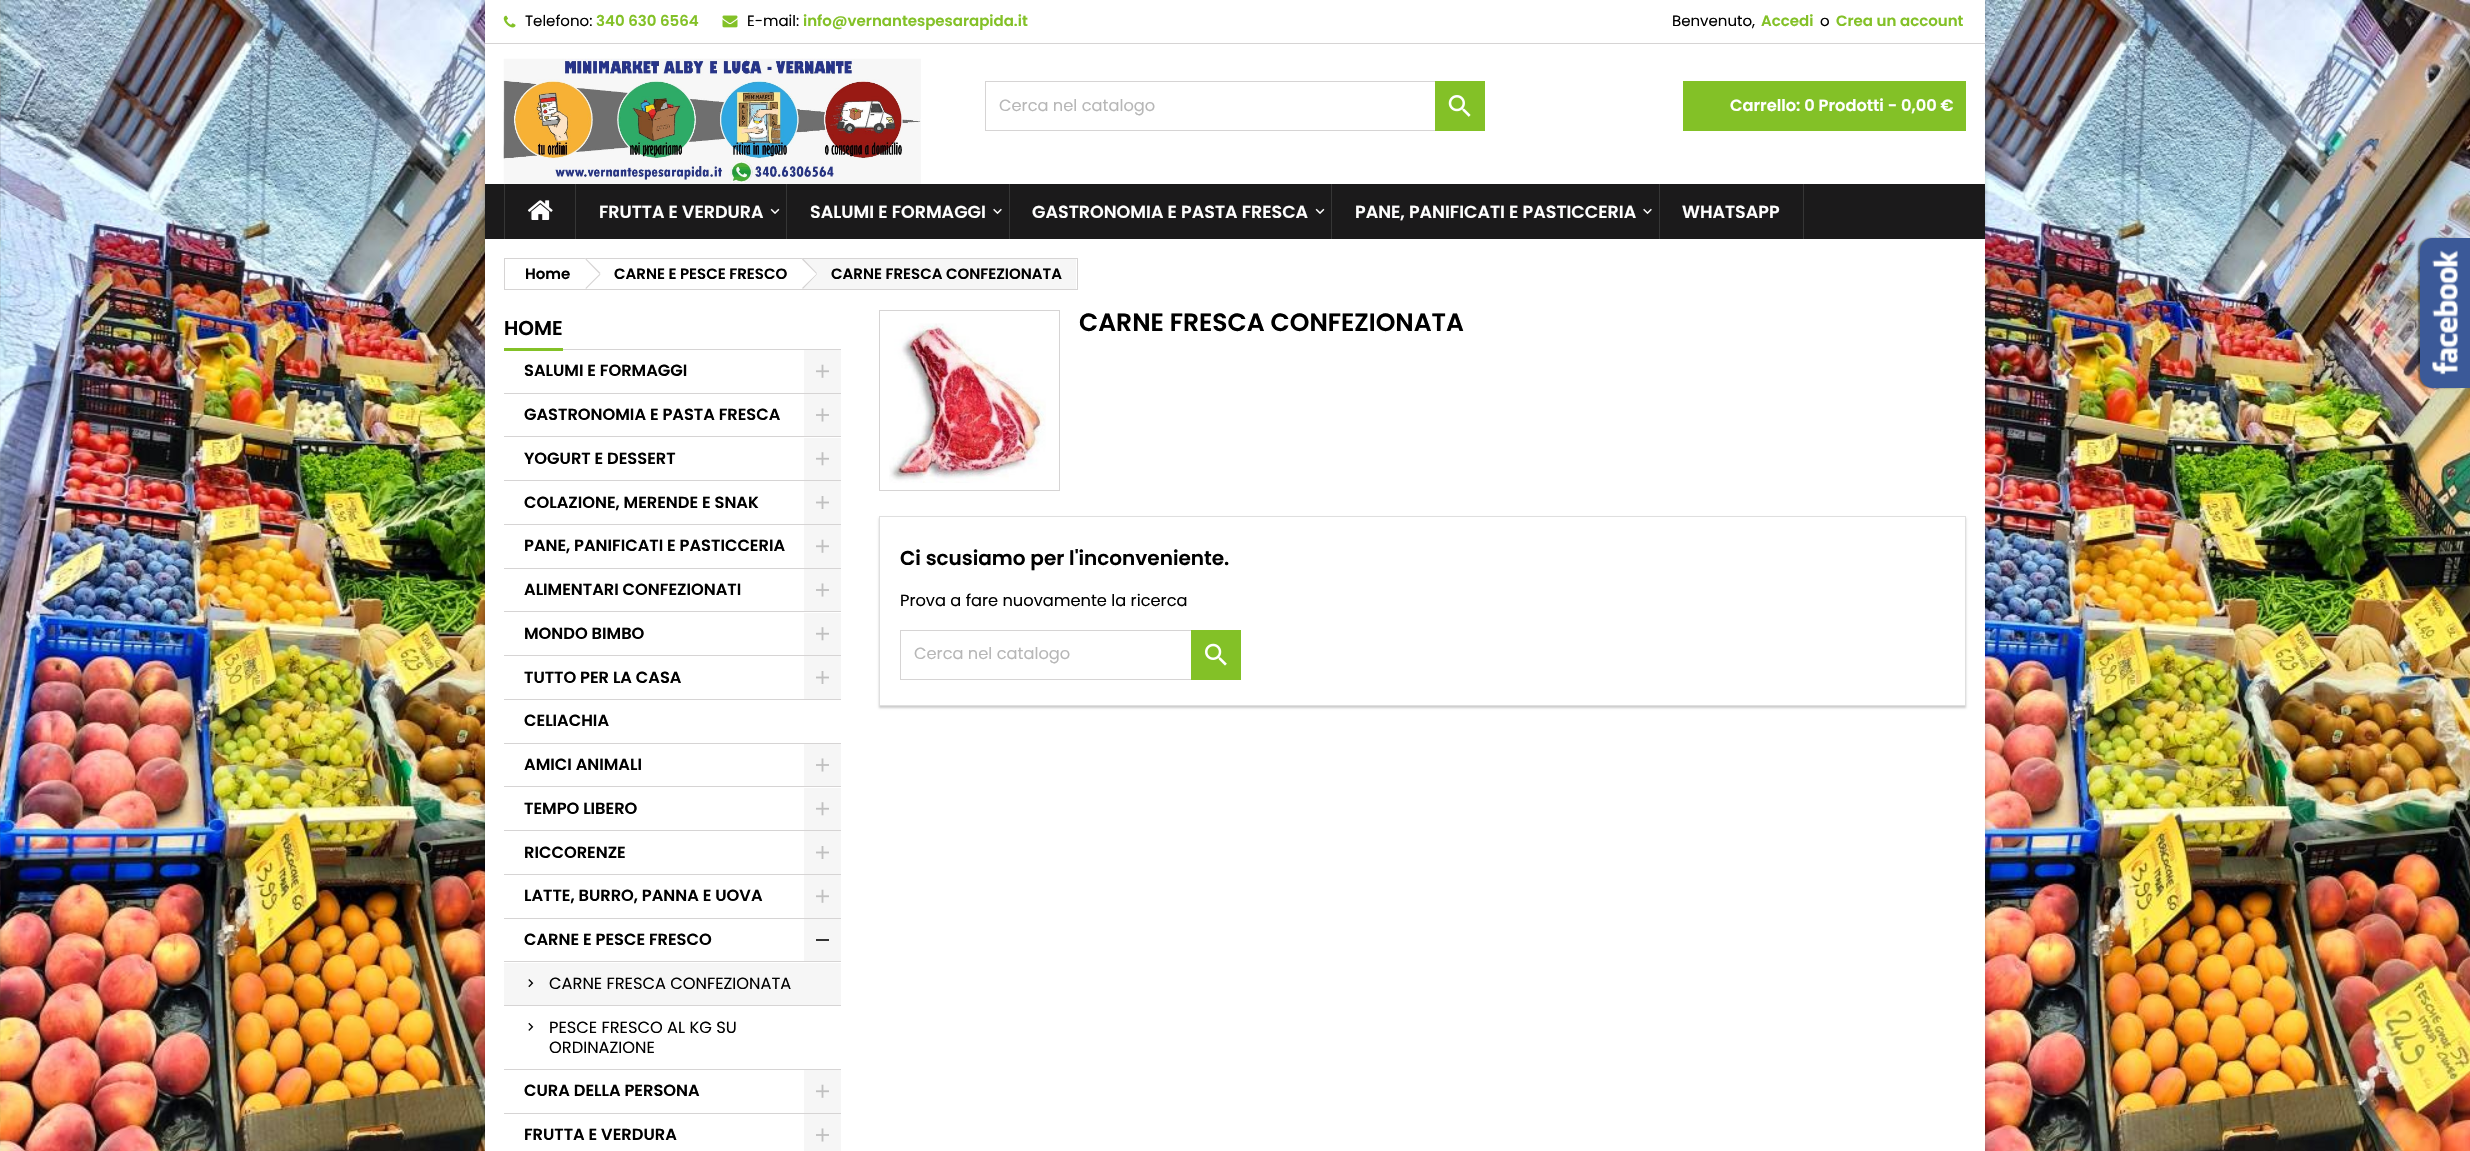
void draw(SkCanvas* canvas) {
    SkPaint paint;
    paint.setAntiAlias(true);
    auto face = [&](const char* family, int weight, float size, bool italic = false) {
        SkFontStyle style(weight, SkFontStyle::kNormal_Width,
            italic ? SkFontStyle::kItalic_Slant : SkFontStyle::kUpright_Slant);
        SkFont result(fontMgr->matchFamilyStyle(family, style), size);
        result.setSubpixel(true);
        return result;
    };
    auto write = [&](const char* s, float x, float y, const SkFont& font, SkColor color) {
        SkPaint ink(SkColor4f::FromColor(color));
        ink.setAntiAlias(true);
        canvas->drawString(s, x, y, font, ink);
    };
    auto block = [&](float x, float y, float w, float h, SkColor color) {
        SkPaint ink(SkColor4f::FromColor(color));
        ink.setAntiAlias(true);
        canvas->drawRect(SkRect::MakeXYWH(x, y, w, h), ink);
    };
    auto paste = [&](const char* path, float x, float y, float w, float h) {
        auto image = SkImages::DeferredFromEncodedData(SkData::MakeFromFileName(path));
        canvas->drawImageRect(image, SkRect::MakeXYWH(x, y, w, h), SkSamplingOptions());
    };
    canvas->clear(SK_ColorWHITE);
    paste("pic1.png", 0, 0, 2470, 1151);
    paint.setColor(SkColorSetARGB(51, 0, 0, 0));
    paint.setMaskFilter(SkMaskFilter::MakeBlur(kNormal_SkBlurStyle, 2.5f));
    canvas->drawRect(SkRect::MakeXYWH(485, 0, 1500, 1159), paint);
    paint.setMaskFilter(nullptr);
    block(485, 0, 1500, 1151, SK_ColorWHITE);
    block(485, 43, 1500, 1, SkColorSetRGB(214, 212, 212));
    paste("pic2.png", 503, 15, 13, 13);
    auto kFont1 = face("Poppins", 400, 15);
    write("Telefono:", 525, 26, kFont1, SK_ColorBLACK);
    auto kFont2 = face("Poppins", 600, 15);
    write("340 630 6564", 596, 26, kFont2, SkColorSetRGB(131, 193, 39));
    paste("pic3.png", 722, 15, 16, 13);
    write("E-mail:", 747, 26, kFont1, SK_ColorBLACK);
    write("info@vernantespesarapida.it", 803, 26, kFont2, SkColorSetRGB(131, 193, 39));
    write("Benvenuto,", 1672, 26, kFont1, SK_ColorBLACK);
    write("Accedi", 1761, 26, kFont2, SkColorSetRGB(131, 193, 39));
    write("o", 1820, 26, kFont1, SK_ColorBLACK);
    write("Crea un account", 1836, 26, kFont2, SkColorSetRGB(131, 193, 39));
    paste("pic4.png", 503, 58, 418, 126);
    paint.setStyle(SkPaint::kStroke_Style);
    paint.setStrokeWidth(1);
    paint.setColor(SkColorSetRGB(214, 212, 212));
    canvas->drawRect(SkRect::MakeXYWH(985.5f, 81.5f, 499, 49), paint);
    auto kFont3 = face("Poppins", 400, 16.25f);
    write("Cerca nel catalogo", 999, 111, kFont3, SkColorSetRGB(183, 183, 183));
    block(1435, 81, 50, 50, SkColorSetRGB(131, 193, 39));
    paste("pic5.png", 1448, 95, 23, 22);
    block(1683, 81, 283, 50, SkColorSetRGB(131, 193, 39));
    auto kFont4 = face("Poppins", 600, 16.25f);
    write("Carrello: 0 Prodotti - 0,00 €", 1730, 111, kFont4, SK_ColorWHITE);
    block(485, 184, 1500, 55, SkColorSetRGB(27, 26, 27));
    block(504, 184, 1, 55, SkColorSetRGB(54, 54, 54));
    paste("pic6.png", 527, 200, 26, 20);
    block(575, 184, 1, 55, SkColorSetRGB(54, 54, 54));
    auto kFont5 = face("Poppins", 600, 17.5f);
    write("FRUTTA E VERDURA", 599, 218, kFont5, SK_ColorWHITE);
    paste("pic7.png", 770, 208, 10, 6);
    block(786, 184, 1, 55, SkColorSetRGB(54, 54, 54));
    write("SALUMI E FORMAGGI", 810, 218, kFont5, SK_ColorWHITE);
    paste("pic8.png", 993, 208, 9, 7);
    block(1009, 184, 1, 55, SkColorSetRGB(54, 54, 54));
    write("GASTRONOMIA E PASTA FRESCA", 1032, 218, kFont5, SK_ColorWHITE);
    paste("pic7.png", 1315, 208, 10, 6);
    block(1331, 184, 1, 55, SkColorSetRGB(54, 54, 54));
    write("PANE, PANIFICATI E PASTICCERIA", 1355, 218, kFont5, SK_ColorWHITE);
    paste("pic8.png", 1643, 208, 9, 7);
    block(1803, 184, 1, 55, SkColorSetRGB(54, 54, 54));
    block(1659, 184, 1, 55, SkColorSetRGB(54, 54, 54));
    write("WHATSAPP", 1682, 218, kFont5, SK_ColorWHITE);
    canvas->drawRect(SkRect::MakeXYWH(504.5f, 258.5f, 573, 31), paint);
    write("Home", 525, 279, kFont2, SK_ColorBLACK);
    paint.setStyle(SkPaint::kFill_Style);
    paint.setColor(SK_ColorWHITE);
    canvas->drawPath(SkPathBuilder().moveTo(587, 259.5f).lineTo(599.5f, 272).cubicTo(600.5f, 273, 600.5f, 274.5f, 599.5f, 275.5f).lineTo(587, 288).cubicTo(586, 289, 584.5f, 289, 583.5f, 288).lineTo(571, 275.5f).cubicTo(570, 274.5f, 570, 273, 571, 272).lineTo(583.5f, 259.5f).cubicTo(584.5f, 258.5f, 586, 258.5f, 587, 259.5f).close().detach(), paint);
    paint.setColor(SkColorSetRGB(214, 212, 212));
    canvas->drawPath(SkPathBuilder().moveTo(586, 258.5f).lineTo(600.5f, 273).lineTo(599.5f, 274).lineTo(585.5f, 259.5f).close().moveTo(599.5f, 274).lineTo(600.5f, 274.5f).lineTo(586, 289).lineTo(585.5f, 288).close().detach(), paint);
    write("CARNE E PESCE FRESCO", 614, 279, kFont2, SK_ColorBLACK);
    block(804, 259, 272, 30, SkColorSetRGB(246, 246, 246));
    paint.setColor(SK_ColorWHITE);
    canvas->drawPath(SkPathBuilder().moveTo(804, 259.5f).lineTo(816.5f, 272).cubicTo(817.5f, 273, 817.5f, 274.5f, 816.5f, 275.5f).lineTo(804, 288).cubicTo(803, 289, 801.5f, 289, 800.5f, 288).lineTo(788, 275.5f).cubicTo(787, 274.5f, 787, 273, 788, 272).lineTo(800.5f, 259.5f).cubicTo(801.5f, 258.5f, 803, 258.5f, 804, 259.5f).close().detach(), paint);
    paint.setColor(SkColorSetRGB(214, 212, 212));
    canvas->drawPath(SkPathBuilder().moveTo(803, 258.5f).lineTo(817, 273).lineTo(816.5f, 274).lineTo(802, 259.5f).close().moveTo(816.5f, 274).lineTo(817, 274.5f).lineTo(803, 289).lineTo(802, 288).close().detach(), paint);
    write("CARNE FRESCA CONFEZIONATA", 831, 279, kFont2, SK_ColorBLACK);
    block(563, 349, 278, 1, SkColorSetRGB(214, 212, 212));
    block(504, 348, 59, 3, SkColorSetRGB(131, 193, 39));
    auto kFont6 = face("Poppins", 600, 20);
    write("HOME", 504, 335, kFont6, SK_ColorBLACK);
    block(504, 393, 337, 1, SkColorSetRGB(214, 212, 212));
    write("SALUMI E FORMAGGI", 524, 376, kFont4, SK_ColorBLACK);
    block(804, 350, 37, 43, SkColorSetRGB(246, 246, 246));
    paste("pic9.png", 816, 364, 13, 14);
    block(504, 436, 337, 1, SkColorSetRGB(214, 212, 212));
    write("GASTRONOMIA E PASTA FRESCA", 524, 420, kFont4, SK_ColorBLACK);
    block(804, 394, 37, 42, SkColorSetRGB(246, 246, 246));
    paste("pic10.png", 816, 408, 13, 14);
    block(504, 480, 337, 1, SkColorSetRGB(214, 212, 212));
    write("YOGURT E DESSERT", 524, 464, kFont4, SK_ColorBLACK);
    block(804, 438, 37, 42, SkColorSetRGB(246, 246, 246));
    paste("pic11.png", 816, 452, 13, 14);
    block(504, 524, 337, 1, SkColorSetRGB(214, 212, 212));
    write("COLAZIONE, MERENDE E SNAK", 524, 508, kFont4, SK_ColorBLACK);
    block(804, 481, 37, 43, SkColorSetRGB(246, 246, 246));
    paste("pic12.png", 816, 496, 13, 13);
    block(504, 568, 337, 1, SkColorSetRGB(214, 212, 212));
    write("PANE, PANIFICATI E PASTICCERIA", 524, 551, kFont4, SK_ColorBLACK);
    block(804, 525, 37, 43, SkColorSetRGB(246, 246, 246));
    paste("pic9.png", 816, 539, 13, 14);
    block(504, 611, 337, 1, SkColorSetRGB(214, 212, 212));
    write("ALIMENTARI CONFEZIONATI", 524, 595, kFont4, SK_ColorBLACK);
    block(804, 569, 37, 42, SkColorSetRGB(246, 246, 246));
    paste("pic10.png", 816, 583, 13, 14);
    block(504, 655, 337, 1, SkColorSetRGB(214, 212, 212));
    write("MONDO BIMBO", 524, 639, kFont4, SK_ColorBLACK);
    block(804, 613, 37, 42, SkColorSetRGB(246, 246, 246));
    paste("pic11.png", 816, 627, 13, 14);
    block(504, 699, 337, 1, SkColorSetRGB(214, 212, 212));
    write("TUTTO PER LA CASA", 524, 683, kFont4, SK_ColorBLACK);
    block(804, 656, 37, 43, SkColorSetRGB(246, 246, 246));
    paste("pic12.png", 816, 671, 13, 13);
    block(504, 743, 337, 1, SkColorSetRGB(214, 212, 212));
    write("CELIACHIA", 524, 726, kFont4, SK_ColorBLACK);
    block(504, 786, 337, 1, SkColorSetRGB(214, 212, 212));
    write("AMICI ANIMALI", 524, 770, kFont4, SK_ColorBLACK);
    block(804, 744, 37, 42, SkColorSetRGB(246, 246, 246));
    paste("pic10.png", 816, 758, 13, 14);
    block(504, 830, 337, 1, SkColorSetRGB(214, 212, 212));
    write("TEMPO LIBERO", 524, 814, kFont4, SK_ColorBLACK);
    block(804, 788, 37, 42, SkColorSetRGB(246, 246, 246));
    paste("pic11.png", 816, 802, 13, 14);
    block(504, 874, 337, 1, SkColorSetRGB(214, 212, 212));
    write("RICCORENZE", 524, 858, kFont4, SK_ColorBLACK);
    block(804, 831, 37, 43, SkColorSetRGB(246, 246, 246));
    paste("pic12.png", 816, 846, 13, 13);
    block(504, 918, 337, 1, SkColorSetRGB(214, 212, 212));
    write("LATTE, BURRO, PANNA E UOVA", 524, 901, kFont4, SK_ColorBLACK);
    block(804, 875, 37, 43, SkColorSetRGB(246, 246, 246));
    paste("pic9.png", 816, 889, 13, 14);
    block(504, 961, 337, 1, SkColorSetRGB(214, 212, 212));
    write("CARNE E PESCE FRESCO", 524, 945, kFont4, SK_ColorBLACK);
    block(804, 919, 37, 42, SkColorSetRGB(246, 246, 246));
    block(816, 939, 13, 2, SkColorSetRGB(51, 51, 51));
    block(504, 963, 337, 42, SkColorSetRGB(246, 246, 246));
    block(504, 1005, 337, 1, SkColorSetRGB(214, 212, 212));
    paste("pic13.png", 528, 979, 6, 9);
    write("CARNE FRESCA CONFEZIONATA", 549, 989, kFont3, SK_ColorBLACK);
    block(504, 1069, 337, 1, SkColorSetRGB(214, 212, 212));
    paste("pic14.png", 528, 1022, 6, 9);
    write("PESCE FRESCO AL KG SU", 549, 1033, kFont3, SK_ColorBLACK);
    write("ORDINAZIONE", 549, 1053, kFont3, SK_ColorBLACK);
    block(504, 1113, 337, 1, SkColorSetRGB(214, 212, 212));
    write("CURA DELLA PERSONA", 524, 1096, kFont4, SK_ColorBLACK);
    block(804, 1070, 37, 43, SkColorSetRGB(246, 246, 246));
    paste("pic9.png", 816, 1084, 13, 14);
    write("FRUTTA E VERDURA", 524, 1140, kFont4, SK_ColorBLACK);
    block(804, 1114, 37, 37, SkColorSetRGB(246, 246, 246));
    paste("pic10.png", 816, 1128, 13, 14);
    paint.setStyle(SkPaint::kStroke_Style);
    canvas->drawRect(SkRect::MakeXYWH(879.5f, 310.5f, 180, 180), paint);
    paste("pic15.png", 889, 323, 157, 160);
    auto kFont7 = face("Poppins", 600, 25);
    write("CARNE FRESCA CONFEZIONATA", 1079, 331, kFont7, SK_ColorBLACK);
    canvas->save();
    canvas->clipPath(SkPathBuilder(SkPathFillType::kEvenOdd).moveTo(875, 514).lineTo(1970, 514).lineTo(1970, 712).lineTo(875, 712).close().moveTo(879, 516).lineTo(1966, 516).lineTo(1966, 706).lineTo(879, 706).close().detach(), true);
    paint.setStyle(SkPaint::kFill_Style);
    paint.setColor(SkColorSetARGB(51, 0, 0, 0));
    paint.setMaskFilter(SkMaskFilter::MakeBlur(kNormal_SkBlurStyle, 1));
    canvas->drawRect(SkRect::MakeXYWH(879, 518, 1087, 190), paint);
    paint.setMaskFilter(nullptr);
    canvas->restore();
    paint.setStyle(SkPaint::kStroke_Style);
    paint.setColor(SkColorSetRGB(223, 223, 223));
    canvas->drawRect(SkRect::MakeXYWH(879.5f, 516.5f, 1086, 189), paint);
    write("Ci scusiamo per l'inconveniente.", 900, 565, kFont6, SK_ColorBLACK);
    write("Prova a fare nuovamente la ricerca", 900, 606, kFont3, SK_ColorBLACK);
    paint.setColor(SkColorSetRGB(214, 212, 212));
    canvas->drawRect(SkRect::MakeXYWH(900.5f, 630.5f, 340, 49), paint);
    write("Cerca nel catalogo", 914, 659, kFont3, SkColorSetRGB(183, 183, 183));
    block(1191, 630, 50, 50, SkColorSetRGB(131, 193, 39));
    paste("pic16.png", 1205, 643, 22, 23);
    paint.setStyle(SkPaint::kFill_Style);
    paint.setColor(SkColorSetARGB(128, 0, 0, 0));
    paint.setMaskFilter(SkMaskFilter::MakeBlur(kNormal_SkBlurStyle, 1));
    canvas->drawRoundRect(SkRect::MakeXYWH(2418, 238, 50, 150), 13, 13, paint);
    paint.setMaskFilter(nullptr);
    paint.setColor(SkColorSetRGB(59, 89, 152));
    canvas->drawPath(SkPathBuilder().moveTo(2433, 238).lineTo(2470, 238).lineTo(2470, 388).lineTo(2433, 388).cubicTo(2426, 388, 2420, 382, 2420, 375).lineTo(2420, 251).cubicTo(2420, 244, 2426, 238, 2433, 238).close().detach(), paint);
    paste("pic17.png", 2432, 250, 26, 125);
}
